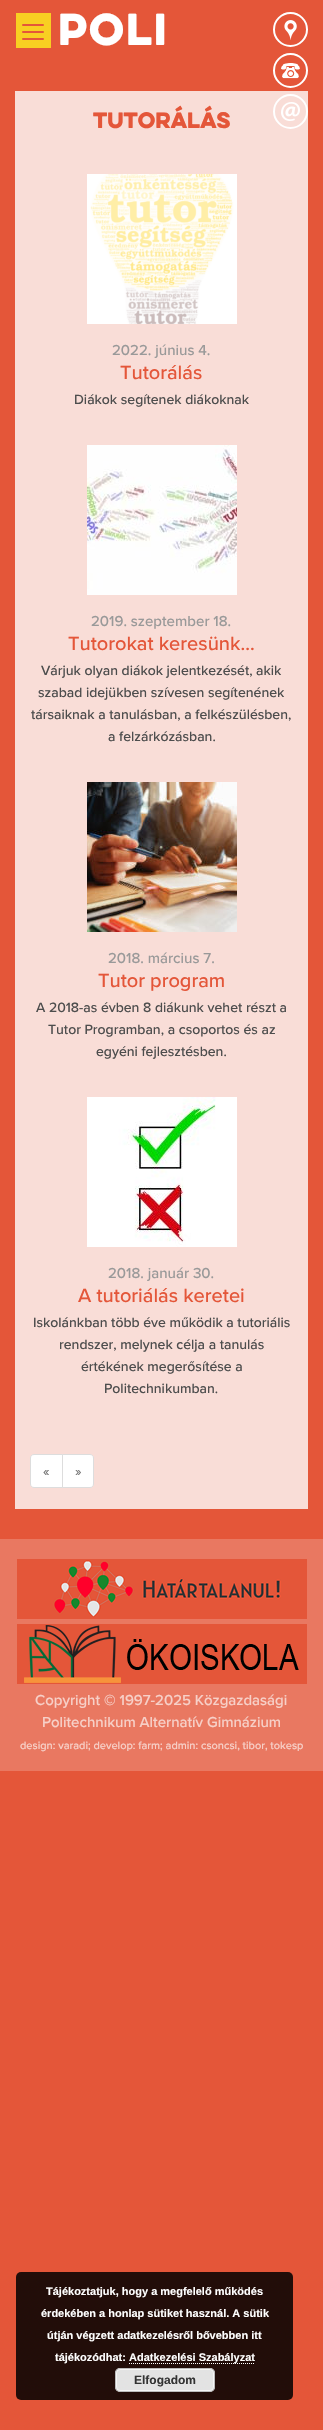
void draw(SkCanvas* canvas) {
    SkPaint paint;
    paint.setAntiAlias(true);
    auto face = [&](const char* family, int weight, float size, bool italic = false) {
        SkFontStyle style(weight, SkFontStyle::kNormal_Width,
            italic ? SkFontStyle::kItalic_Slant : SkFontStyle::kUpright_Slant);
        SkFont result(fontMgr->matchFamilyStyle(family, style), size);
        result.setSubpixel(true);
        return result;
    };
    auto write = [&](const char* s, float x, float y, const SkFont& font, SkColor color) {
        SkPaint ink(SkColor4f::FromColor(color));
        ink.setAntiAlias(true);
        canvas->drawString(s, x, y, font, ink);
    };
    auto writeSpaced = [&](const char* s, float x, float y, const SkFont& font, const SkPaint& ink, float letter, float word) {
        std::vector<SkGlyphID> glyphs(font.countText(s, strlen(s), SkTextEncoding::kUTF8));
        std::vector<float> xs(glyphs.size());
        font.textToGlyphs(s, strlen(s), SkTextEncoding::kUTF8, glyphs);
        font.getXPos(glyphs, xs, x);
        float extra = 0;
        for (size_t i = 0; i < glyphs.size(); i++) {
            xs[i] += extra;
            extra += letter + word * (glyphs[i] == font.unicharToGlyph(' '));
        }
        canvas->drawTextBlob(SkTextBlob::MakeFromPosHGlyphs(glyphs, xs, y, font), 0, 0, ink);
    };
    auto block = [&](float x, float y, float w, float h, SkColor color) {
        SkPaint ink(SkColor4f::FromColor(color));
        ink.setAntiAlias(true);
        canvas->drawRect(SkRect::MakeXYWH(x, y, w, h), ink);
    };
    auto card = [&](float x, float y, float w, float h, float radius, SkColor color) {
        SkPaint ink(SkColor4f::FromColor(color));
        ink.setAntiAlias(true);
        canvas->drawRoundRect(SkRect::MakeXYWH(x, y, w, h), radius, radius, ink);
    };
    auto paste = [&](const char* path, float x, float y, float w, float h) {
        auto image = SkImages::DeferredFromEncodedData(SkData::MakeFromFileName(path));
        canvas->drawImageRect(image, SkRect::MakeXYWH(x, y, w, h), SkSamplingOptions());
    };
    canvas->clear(SkColorSetRGB(228, 86, 57));
    block(16, 13, 35, 35, SkColorSetRGB(248, 207, 34));
    card(22, 24, 22, 2, 1, SkColorSetRGB(228, 86, 57));
    card(22, 31, 22, 2, 1, SkColorSetRGB(228, 86, 57));
    card(22, 38, 22, 2, 1, SkColorSetRGB(228, 86, 57));
    auto kFont1 = face("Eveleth", 400, 40);
    paint.setColor(SK_ColorWHITE);
    writeSpaced("Poli", 58, 45, kFont1, paint, 2, 0);
    paste("pic1.png", 284, 20, 13, 20);
    paint.setStyle(SkPaint::kStroke_Style);
    paint.setStrokeWidth(2);
    canvas->drawCircle(290.5f, 29.5f, 16.5f, paint);
    paste("pic2.png", 281, 63, 19, 16);
    canvas->drawCircle(290.5f, 70.5f, 16.5f, paint);
    block(15, 91, 293, 1418, SkColorSetRGB(249, 221, 215));
    paste("pic3.png", 281, 102, 19, 19);
    canvas->drawCircle(290.5f, 111.5f, 16.5f, paint);
    auto kFont2 = face("Eveleth", 400, 20);
    write("Tutorálás", 93, 128, kFont2, SkColorSetRGB(228, 86, 57));
    paste("pic4.png", 87, 174, 150, 150);
    auto kFont3 = face("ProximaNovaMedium", 400, 15);
    write("2022. június 4.", 112, 355, kFont3, SkColorSetRGB(153, 153, 153));
    auto kFont4 = face("ProximaNovaMedium", 400, 20);
    write("Tutorálás", 120, 379, kFont4, SkColorSetRGB(228, 86, 57));
    auto kFont5 = face("ProximaNovaMedium", 400, 14);
    write("Diákok segítenek diákoknak", 74, 404, kFont5, SkColorSetRGB(77, 77, 77));
    paste("pic5.png", 87, 445, 150, 150);
    write("2019. szeptember 18.", 91, 626, kFont3, SkColorSetRGB(153, 153, 153));
    write("Tutorokat keresünk…", 68, 650, kFont4, SkColorSetRGB(228, 86, 57));
    write("Várjuk olyan diákok jelentkezését, akik", 41, 675, kFont5, SkColorSetRGB(77, 77, 77));
    write("szabad idejükben szívesen segítenének", 38, 697, kFont5, SkColorSetRGB(77, 77, 77));
    write("társaiknak a tanulásban, a felkészülésben,", 31, 719, kFont5, SkColorSetRGB(77, 77, 77));
    write("a felzárkózásban.", 108, 741, kFont5, SkColorSetRGB(77, 77, 77));
    paste("pic6.png", 87, 782, 150, 150);
    write("2018. március 7.", 108, 963, kFont3, SkColorSetRGB(153, 153, 153));
    write("Tutor program", 98, 987, kFont4, SkColorSetRGB(228, 86, 57));
    write("A 2018-as évben 8 diákunk vehet részt a", 36, 1012, kFont5, SkColorSetRGB(77, 77, 77));
    write("Tutor Programban, a csoportos és az", 48, 1034, kFont5, SkColorSetRGB(77, 77, 77));
    write("egyéni fejlesztésben.", 96, 1056, kFont5, SkColorSetRGB(77, 77, 77));
    paste("pic7.png", 87, 1097, 150, 150);
    write("2018. január 30.", 108, 1278, kFont3, SkColorSetRGB(153, 153, 153));
    write("A tutoriálás keretei", 78, 1302, kFont4, SkColorSetRGB(228, 86, 57));
    write("Iskolánkban több éve működik a tutoriális", 33, 1327, kFont5, SkColorSetRGB(77, 77, 77));
    write("rendszer, melynek célja a tanulás", 59, 1349, kFont5, SkColorSetRGB(77, 77, 77));
    write("értékének megerősítése a", 81, 1371, kFont5, SkColorSetRGB(77, 77, 77));
    write("Politechnikumban.", 104, 1393, kFont5, SkColorSetRGB(77, 77, 77));
    paint.setStyle(SkPaint::kFill_Style);
    canvas->drawPath(SkPathBuilder().moveTo(34, 1454.5f).lineTo(62.5f, 1454.5f).lineTo(62.5f, 1487.5f).lineTo(34, 1487.5f).cubicTo(32, 1487.5f, 30.5f, 1486, 30.5f, 1484).lineTo(30.5f, 1458).cubicTo(30.5f, 1456, 32, 1454.5f, 34, 1454.5f).close().detach(), paint);
    paint.setStyle(SkPaint::kStroke_Style);
    paint.setStrokeWidth(1);
    paint.setColor(SkColorSetRGB(221, 221, 221));
    canvas->drawPath(SkPathBuilder().moveTo(34, 1454.5f).lineTo(62.5f, 1454.5f).lineTo(62.5f, 1487.5f).lineTo(34, 1487.5f).cubicTo(32, 1487.5f, 30.5f, 1486, 30.5f, 1484).lineTo(30.5f, 1458).cubicTo(30.5f, 1456, 32, 1454.5f, 34, 1454.5f).close().detach(), paint);
    write("«", 43, 1476, kFont5, SkColorSetRGB(119, 119, 119));
    paint.setStyle(SkPaint::kFill_Style);
    paint.setColor(SK_ColorWHITE);
    canvas->drawPath(SkPathBuilder().moveTo(62.5f, 1454.5f).lineTo(90, 1454.5f).cubicTo(92, 1454.5f, 93.5f, 1456, 93.5f, 1458).lineTo(93.5f, 1484).cubicTo(93.5f, 1486, 92, 1487.5f, 90, 1487.5f).lineTo(62.5f, 1487.5f).close().detach(), paint);
    paint.setStyle(SkPaint::kStroke_Style);
    paint.setColor(SkColorSetRGB(221, 221, 221));
    canvas->drawPath(SkPathBuilder().moveTo(62.5f, 1454.5f).lineTo(90, 1454.5f).cubicTo(92, 1454.5f, 93.5f, 1456, 93.5f, 1458).lineTo(93.5f, 1484).cubicTo(93.5f, 1486, 92, 1487.5f, 90, 1487.5f).lineTo(62.5f, 1487.5f).close().detach(), paint);
    write("»", 75, 1476, kFont5, SkColorSetRGB(119, 119, 119));
    block(0, 1539, 323, 232, SkColorSetRGB(233, 120, 97));
    block(17, 1559, 290, 60, SkColorSetRGB(228, 86, 57));
    paste("pic8.png", 53, 1560, 228, 58);
    block(17, 1624, 290, 60, SkColorSetRGB(228, 86, 57));
    paste("pic9.png", 24, 1625, 275, 58);
    write("Copyright © 1997-2025 Közgazdasági", 35, 1705, kFont3, SkColorSetRGB(247, 208, 200));
    write("Politechnikum Alternatív Gimnázium", 42, 1727, kFont3, SkColorSetRGB(247, 208, 200));
    auto kFont6 = face("ProximaNovaMedium", 400, 11);
    write("design: varadi; develop: farm; admin: csoncsi, tibor, tokesp", 20, 1749, kFont6, SkColorSetRGB(247, 208, 200));
    card(16, 2272, 277, 128, 5, SkColorSetRGB(34, 13, 9));
    auto kFont7 = face("Liberation Sans", 700, 11);
    write("Tájékoztatjuk, hogy a megfelelő működés", 46, 2295, kFont7, SK_ColorWHITE);
    write("érdekében a honlap sütiket használ. A sütik", 41, 2317, kFont7, SK_ColorWHITE);
    write("útján végzett adatkezelésről bővebben itt", 47, 2339, kFont7, SK_ColorWHITE);
    write("tájékozódhat:", 55, 2361, kFont7, SK_ColorWHITE);
    paint.setColor(SK_ColorWHITE);
    paint.setPathEffect(SkDashPathEffect::Make({{1, 1}}, 0));
    canvas->drawPath(SkPathBuilder().moveTo(129, 2363.5f).lineTo(255, 2363.5f).detach(), paint);
    paint.setPathEffect(nullptr);
    write("Adatkezelési Szabályzat", 129, 2361, kFont7, SK_ColorWHITE);
    card(115, 2368, 100, 24, 5, SkColorSetRGB(227, 227, 227));
    paint.setColor(SkColorSetRGB(246, 246, 246));
    canvas->drawRoundRect(SkRect::MakeXYWH(116.5f, 2369.5f, 97, 21), 3.5f, 3.5f, paint);
    paint.setColor(SkColorSetRGB(187, 187, 187));
    canvas->drawRoundRect(SkRect::MakeXYWH(115.5f, 2368.5f, 99, 23), 4.5f, 4.5f, paint);
    auto kFont8 = face("Liberation Sans", 700, 12);
    write("Elfogadom", 134, 2384, kFont8, SkColorSetRGB(51, 51, 51));
}
